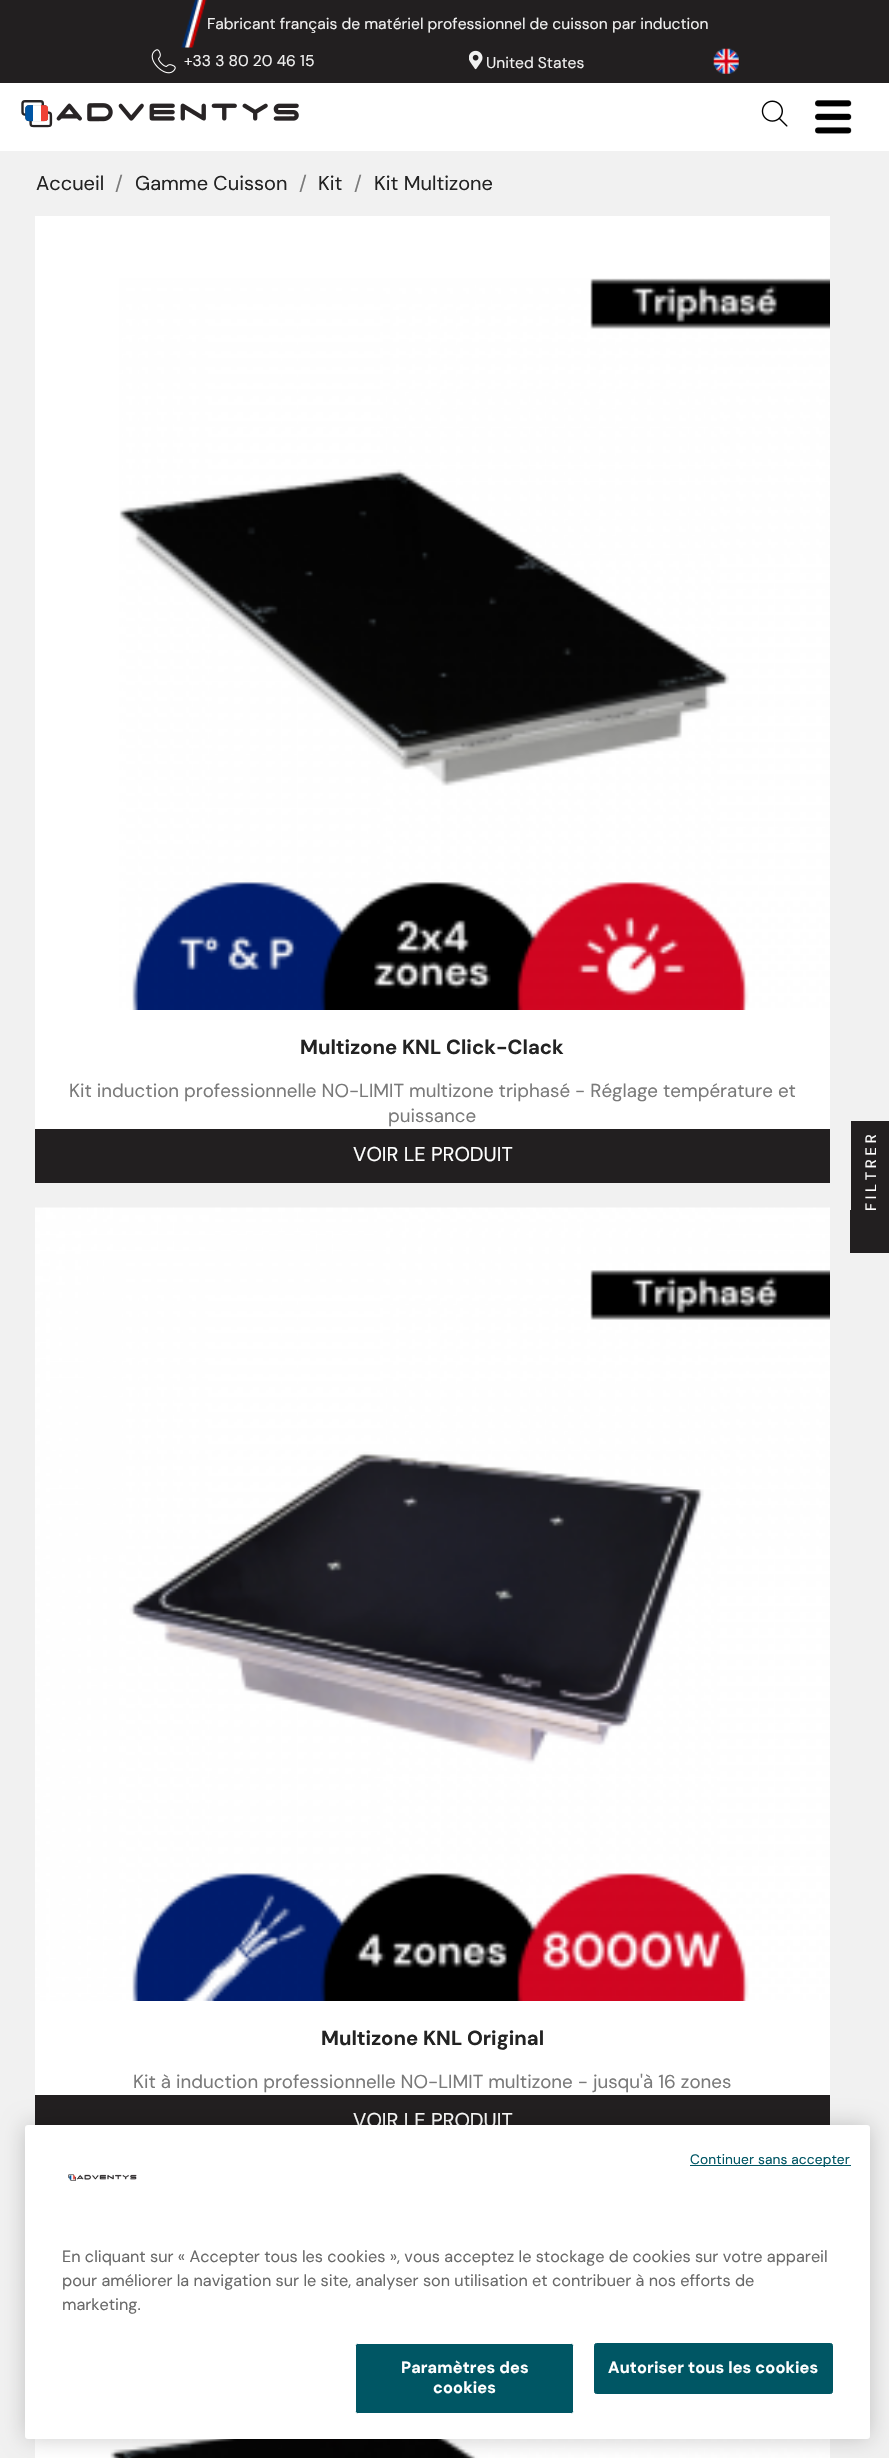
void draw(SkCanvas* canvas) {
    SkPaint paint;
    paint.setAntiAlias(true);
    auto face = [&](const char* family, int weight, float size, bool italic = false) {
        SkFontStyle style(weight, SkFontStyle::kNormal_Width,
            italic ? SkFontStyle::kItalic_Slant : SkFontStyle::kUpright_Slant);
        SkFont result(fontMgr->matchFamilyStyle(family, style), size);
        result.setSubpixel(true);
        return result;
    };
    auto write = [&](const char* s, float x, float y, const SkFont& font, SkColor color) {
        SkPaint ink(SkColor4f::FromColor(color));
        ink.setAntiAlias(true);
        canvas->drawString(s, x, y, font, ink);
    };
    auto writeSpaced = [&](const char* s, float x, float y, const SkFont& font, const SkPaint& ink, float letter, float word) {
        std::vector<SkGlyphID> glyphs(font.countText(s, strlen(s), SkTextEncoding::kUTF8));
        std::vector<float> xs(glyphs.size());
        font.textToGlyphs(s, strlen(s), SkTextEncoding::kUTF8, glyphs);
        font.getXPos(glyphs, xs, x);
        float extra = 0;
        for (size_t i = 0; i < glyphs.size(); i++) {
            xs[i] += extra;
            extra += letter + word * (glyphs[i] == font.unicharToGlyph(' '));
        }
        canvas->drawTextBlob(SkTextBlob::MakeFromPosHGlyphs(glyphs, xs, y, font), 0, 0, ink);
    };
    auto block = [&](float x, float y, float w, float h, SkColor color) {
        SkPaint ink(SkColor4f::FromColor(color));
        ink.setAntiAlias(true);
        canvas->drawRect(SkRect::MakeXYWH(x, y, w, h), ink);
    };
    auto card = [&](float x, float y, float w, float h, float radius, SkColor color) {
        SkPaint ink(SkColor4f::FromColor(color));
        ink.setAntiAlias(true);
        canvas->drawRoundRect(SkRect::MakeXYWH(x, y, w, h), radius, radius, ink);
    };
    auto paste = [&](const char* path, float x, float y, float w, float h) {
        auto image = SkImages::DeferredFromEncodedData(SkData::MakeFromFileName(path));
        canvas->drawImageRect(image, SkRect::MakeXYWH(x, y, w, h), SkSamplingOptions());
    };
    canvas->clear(SK_ColorWHITE);
    block(0, 0, 889, 83, SkColorSetRGB(34, 31, 32));
    paste("pic1.png", 181, 0, 26, 48);
    auto kFont1 = face("DM Sans", 400, 15.6f);
    write("Fabricant français de matériel professionnel de cuisson par induction", 207, 29, kFont1, SkColorSetRGB(240, 240, 240));
    paste("pic2.png", 151, 49, 25, 25);
    write("+33 3 80 20 46 15", 184, 66, kFont1, SkColorSetRGB(240, 240, 240));
    paste("pic3.png", 469, 50, 14, 20);
    write("United States", 486, 68, kFont1, SkColorSetRGB(240, 240, 240));
    paste("pic4.png", 713, 48, 26, 26);
    paste("pic5.png", 21, 100, 278, 28);
    paste("pic6.png", 761, 100, 27, 27);
    paste("pic7.png", 815, 100, 37, 34);
    block(0, 151, 889, 2307, SkColorSetRGB(241, 241, 241));
    auto kFont2 = face("DM Sans", 400, 20);
    write("Accueil", 36, 190, kFont2, SkColorSetRGB(35, 35, 35));
    write("/", 115, 190, kFont2, SkColorSetRGB(122, 122, 122));
    write("Gamme Cuisson", 135, 190, kFont2, SkColorSetRGB(35, 35, 35));
    write("/", 299, 190, kFont2, SkColorSetRGB(122, 122, 122));
    write("Kit", 318, 190, kFont2, SkColorSetRGB(35, 35, 35));
    write("/", 354, 190, kFont2, SkColorSetRGB(122, 122, 122));
    write("Kit Multizone", 374, 190, kFont2, SkColorSetRGB(35, 35, 35));
    block(35, 216, 795, 913, SK_ColorWHITE);
    paste("pic8.png", 119, 278, 711, 732);
    auto kFont3 = face("DM Sans", 700, 20.25f);
    write("Multizone KNL Click-Clack", 300, 1054, kFont3, SkColorSetRGB(35, 35, 35));
    auto kFont4 = face("DM Sans", 400, 18.75f);
    write("Kit induction professionnelle NO-LIMIT multizone triphasé - Réglage température et", 69, 1097, kFont4, SkColorSetRGB(122, 122, 122));
    write("puissance", 388, 1122, kFont4, SkColorSetRGB(122, 122, 122));
    block(35, 1129, 795, 54, SkColorSetRGB(34, 31, 32));
    write("VOIR LE PRODUIT", 353, 1161, kFont2, SK_ColorWHITE);
    paste("pic9.png", 35, 1207, 795, 794);
    block(35, 2001, 795, 94, SK_ColorWHITE);
    write("Multizone KNL Original", 321, 2045, kFont3, SkColorSetRGB(35, 35, 35));
    write("Kit à induction professionnelle NO-LIMIT multizone - jusqu'à 16 zones", 133, 2088, kFont4, SkColorSetRGB(122, 122, 122));
    block(35, 2095, 795, 30, SkColorSetRGB(34, 31, 32));
    write("VOIR LE PRODUIT", 353, 2127, kFont2, SK_ColorWHITE);
    block(35, 2439, 75, 19, SK_ColorWHITE);
    paste("pic10.png", 110, 2439, 720, 19);
    block(850, 1210, 39, 43, SkColorSetRGB(34, 31, 32));
    block(851, 1121, 38, 89, SkColorSetRGB(34, 31, 32));
    auto kFont5 = face("DM Sans", 400, 15);
    paint.setColor(SK_ColorWHITE);
    canvas->save();
    canvas->rotate(-90, 876, 1211);
    writeSpaced("FILTRER", 876, 1211, kFont5, paint, 3.75f, 0);
    canvas->restore();
    paint.setColor(SkColorSetARGB(51, 0, 0, 0));
    paint.setMaskFilter(SkMaskFilter::MakeBlur(kNormal_SkBlurStyle, 11));
    canvas->drawRoundRect(SkRect::MakeXYWH(25, 2125, 845, 314), 3, 3, paint);
    paint.setMaskFilter(nullptr);
    card(25, 2125, 845, 314, 3, SK_ColorWHITE);
    block(690, 2165, 161, 1, SkColorSetRGB(0, 86, 100));
    auto kFont6 = face("DM Sans", 400, 13.75f);
    paint.setColor(SkColorSetRGB(0, 86, 100));
    writeSpaced("Continuer sans accepter", 690, 2164, kFont6, paint, 0.1f, 0);
    paste("pic11.png", 68, 2174, 69, 7);
    auto kFont7 = face("DM Sans", 400, 16.25f);
    write("En cliquant sur « Accepter tous les cookies », vous acceptez le stockage de cookies sur votre appareil", 62, 2262, kFont7, SkColorSetRGB(105, 105, 105));
    write("pour améliorer la navigation sur le site, analyser son utilisation et contribuer à nos efforts de", 62, 2286, kFont7, SkColorSetRGB(105, 105, 105));
    write("marketing.", 62, 2310, kFont7, SkColorSetRGB(105, 105, 105));
    canvas->drawRoundRect(SkRect::MakeXYWH(355.5f, 2343.5f, 218, 70), 2, 2, paint);
    paint.setStyle(SkPaint::kStroke_Style);
    paint.setStrokeWidth(1);
    paint.setColor(SK_ColorWHITE);
    canvas->drawRoundRect(SkRect::MakeXYWH(355.5f, 2343.5f, 218, 70), 2, 2, paint);
    auto kFont8 = face("DM Sans", 700, 16.25f);
    paint.setStyle(SkPaint::kFill_Style);
    writeSpaced("Paramètres des", 401, 2373, kFont8, paint, 0.15f, 0);
    writeSpaced("cookies", 433, 2393, kFont8, paint, 0.15f, 0);
    paint.setColor(SkColorSetRGB(0, 86, 100));
    canvas->drawRoundRect(SkRect::MakeXYWH(594.5f, 2343.5f, 238, 50), 2, 2, paint);
    paint.setStyle(SkPaint::kStroke_Style);
    canvas->drawRoundRect(SkRect::MakeXYWH(594.5f, 2343.5f, 238, 50), 2, 2, paint);
    paint.setStyle(SkPaint::kFill_Style);
    paint.setColor(SK_ColorWHITE);
    writeSpaced("Autoriser tous les cookies", 608, 2373, kFont8, paint, 0.15f, 0);
}
